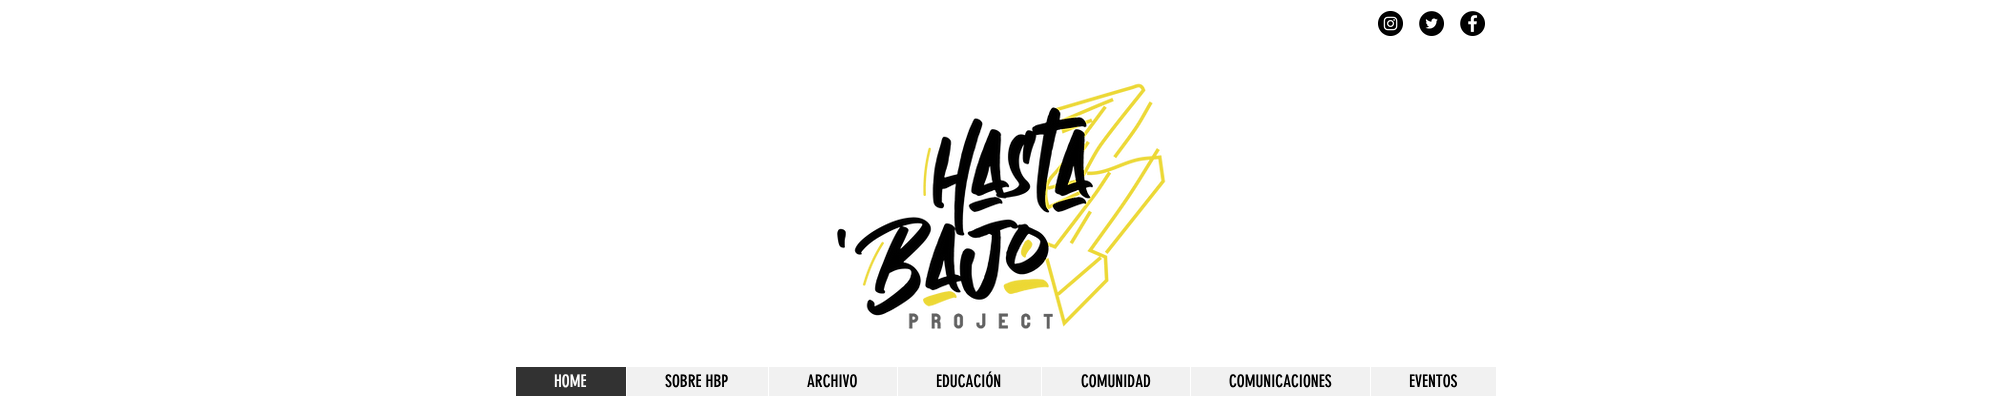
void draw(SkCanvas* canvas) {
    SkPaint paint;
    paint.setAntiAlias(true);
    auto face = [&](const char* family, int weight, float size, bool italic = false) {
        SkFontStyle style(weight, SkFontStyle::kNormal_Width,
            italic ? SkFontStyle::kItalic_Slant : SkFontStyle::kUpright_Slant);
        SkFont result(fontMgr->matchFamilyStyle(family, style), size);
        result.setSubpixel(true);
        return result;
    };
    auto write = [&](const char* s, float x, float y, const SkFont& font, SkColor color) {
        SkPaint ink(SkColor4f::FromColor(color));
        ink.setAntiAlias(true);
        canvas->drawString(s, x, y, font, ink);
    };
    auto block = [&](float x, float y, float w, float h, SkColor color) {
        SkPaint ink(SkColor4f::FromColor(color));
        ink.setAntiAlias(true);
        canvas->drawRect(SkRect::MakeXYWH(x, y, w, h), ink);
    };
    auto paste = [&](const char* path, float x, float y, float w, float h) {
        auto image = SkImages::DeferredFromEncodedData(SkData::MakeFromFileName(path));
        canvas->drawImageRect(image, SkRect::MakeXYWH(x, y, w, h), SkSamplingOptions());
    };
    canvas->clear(SK_ColorWHITE);
    paste("pic1.png", 1378, 11, 25, 25);
    paste("pic2.png", 1419, 11, 25, 25);
    paste("pic3.png", 1460, 11, 25, 25);
    paste("pic4.png", 837, 82, 329, 248);
    block(627, 367, 869, 29, SkColorSetRGB(241, 241, 241));
    block(516, 367, 110, 29, SkColorSetRGB(50, 50, 50));
    auto kFont1 = face("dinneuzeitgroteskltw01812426", 400, 17);
    write("HOME", 554, 387, kFont1, SK_ColorWHITE);
    write("SOBRE HBP", 665, 387, kFont1, SK_ColorBLACK);
    block(768, 367, 1, 29, SK_ColorWHITE);
    write("ARCHIVO", 807, 387, kFont1, SK_ColorBLACK);
    block(897, 367, 1, 29, SK_ColorWHITE);
    write("EDUCACIÓN", 936, 387, kFont1, SK_ColorBLACK);
    block(1041, 367, 1, 29, SK_ColorWHITE);
    write("COMUNIDAD", 1081, 387, kFont1, SK_ColorBLACK);
    block(1190, 367, 1, 29, SK_ColorWHITE);
    write("COMUNICACIONES", 1229, 387, kFont1, SK_ColorBLACK);
    block(1370, 367, 1, 29, SK_ColorWHITE);
    write("EVENTOS", 1409, 387, kFont1, SK_ColorBLACK);
}
